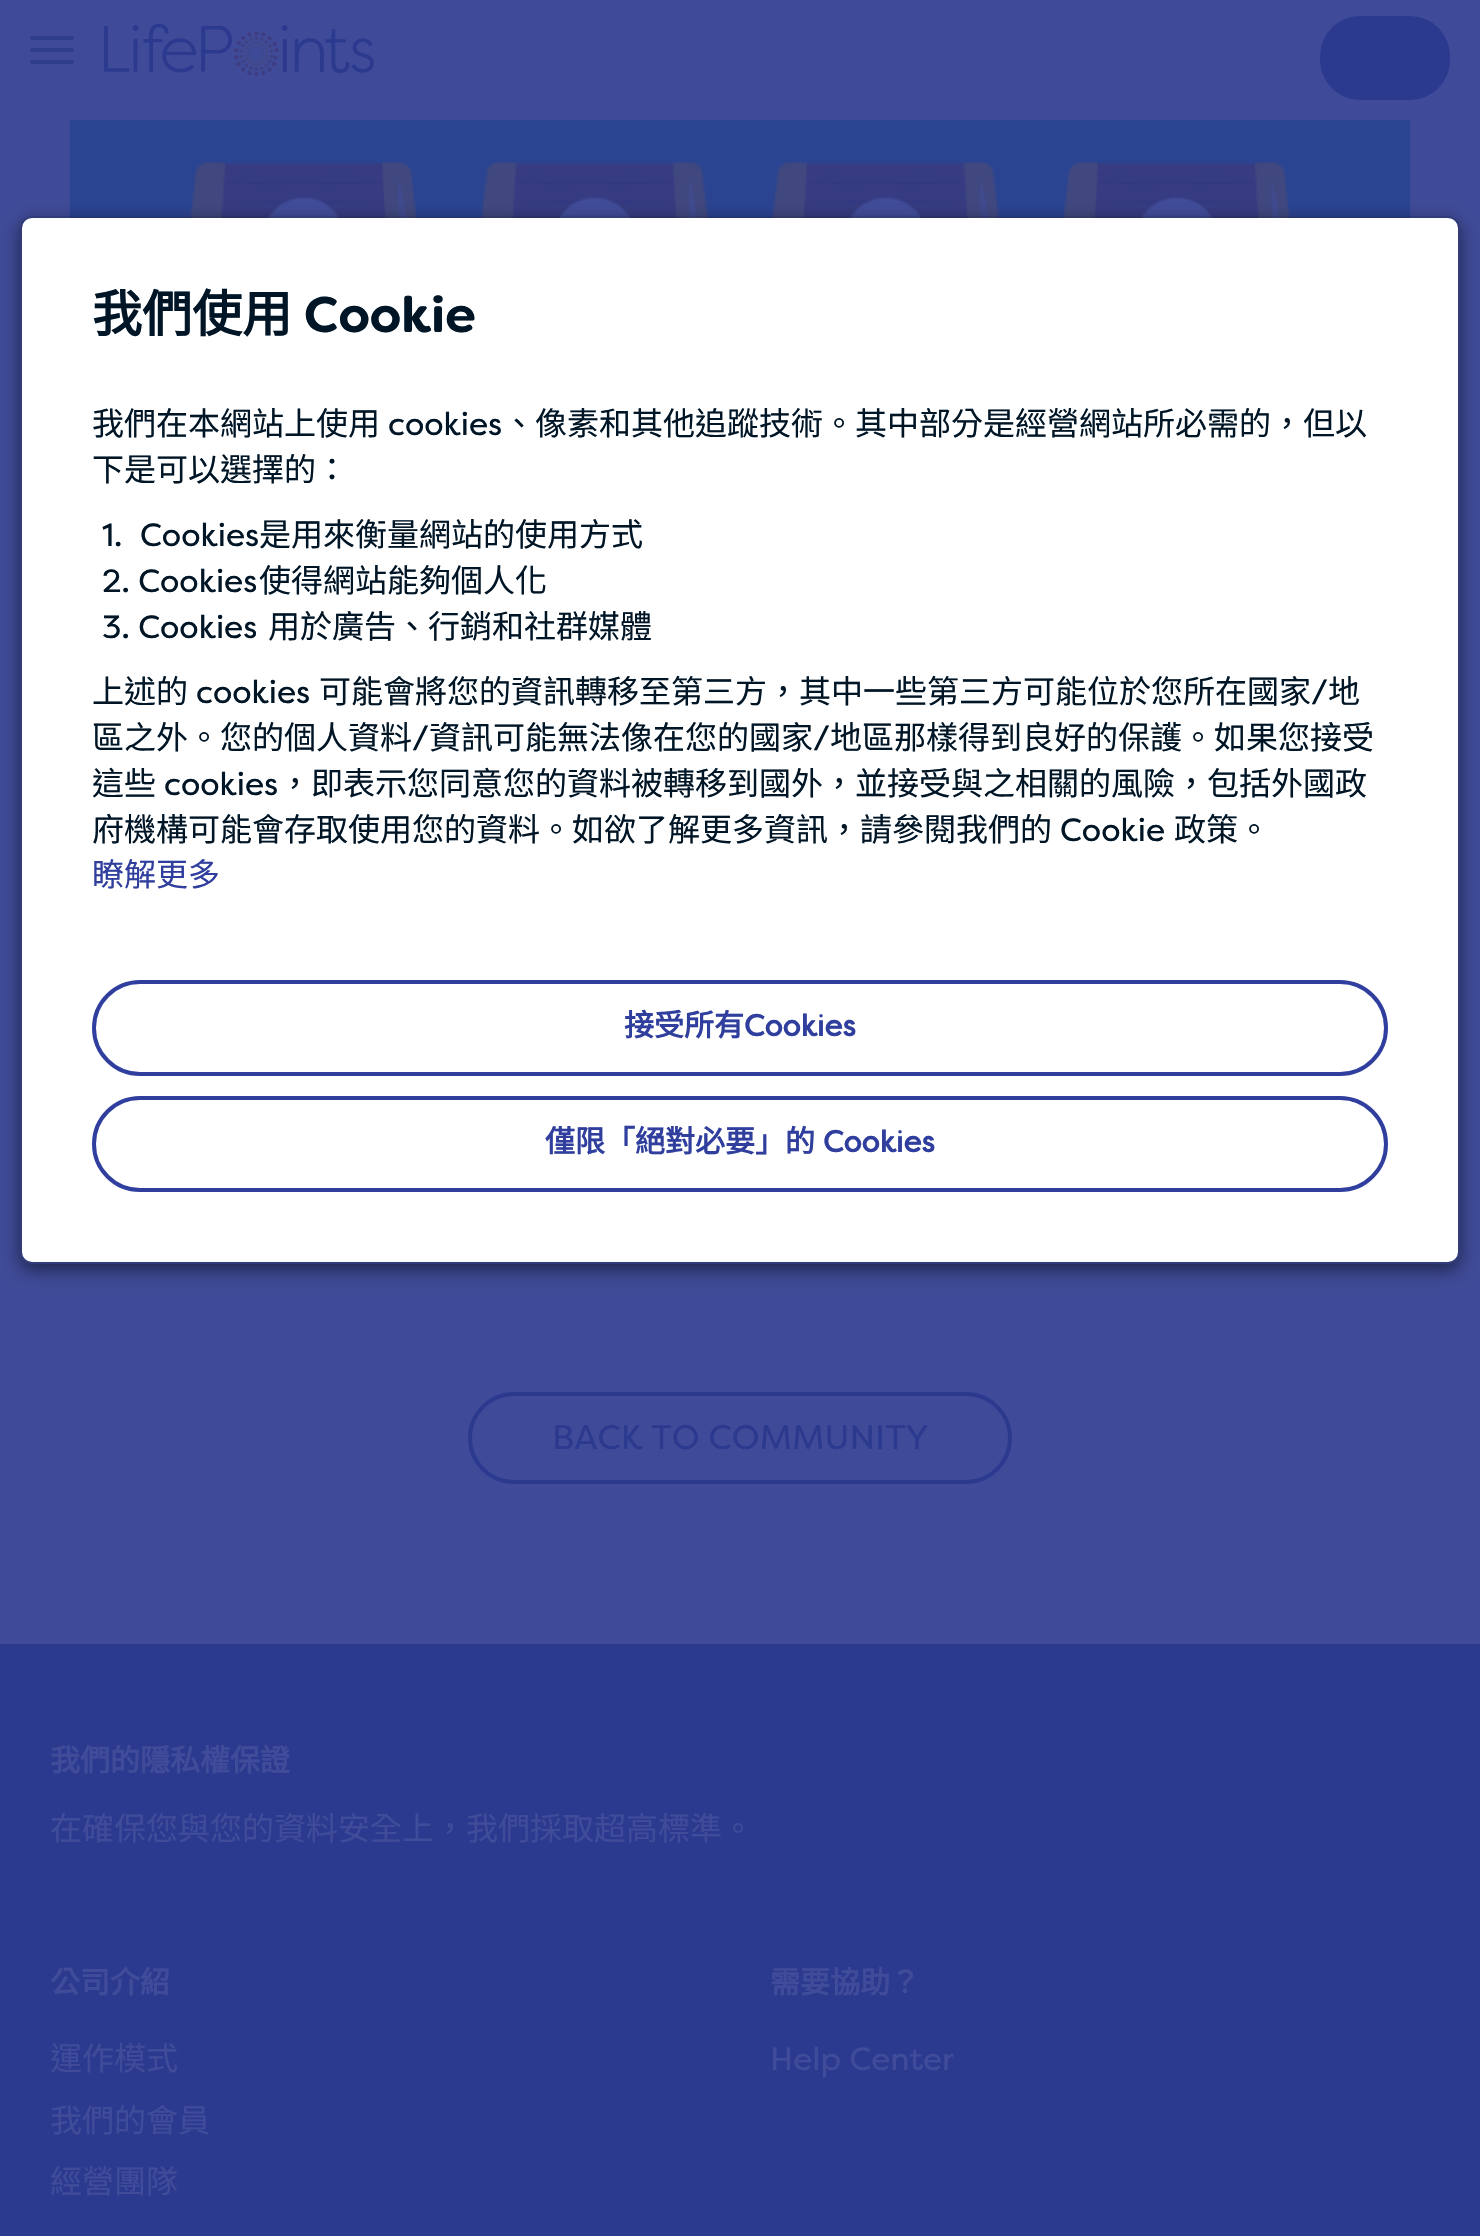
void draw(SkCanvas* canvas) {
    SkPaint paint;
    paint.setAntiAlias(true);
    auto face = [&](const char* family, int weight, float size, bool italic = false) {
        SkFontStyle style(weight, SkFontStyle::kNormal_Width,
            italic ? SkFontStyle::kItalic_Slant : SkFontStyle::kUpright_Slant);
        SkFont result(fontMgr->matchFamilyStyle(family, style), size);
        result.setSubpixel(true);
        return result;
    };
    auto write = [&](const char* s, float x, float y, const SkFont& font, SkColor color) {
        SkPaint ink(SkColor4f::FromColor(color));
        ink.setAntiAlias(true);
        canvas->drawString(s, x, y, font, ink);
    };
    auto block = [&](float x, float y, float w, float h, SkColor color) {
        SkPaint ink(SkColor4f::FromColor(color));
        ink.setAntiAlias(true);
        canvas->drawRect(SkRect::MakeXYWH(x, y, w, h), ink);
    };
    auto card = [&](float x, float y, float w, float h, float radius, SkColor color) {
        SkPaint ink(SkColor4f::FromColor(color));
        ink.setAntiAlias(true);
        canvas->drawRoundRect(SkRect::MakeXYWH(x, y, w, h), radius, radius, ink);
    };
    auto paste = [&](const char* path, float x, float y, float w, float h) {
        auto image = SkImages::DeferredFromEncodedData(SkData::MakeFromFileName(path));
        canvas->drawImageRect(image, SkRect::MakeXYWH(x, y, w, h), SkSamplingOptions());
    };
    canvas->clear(SkColorSetRGB(63, 75, 152));
    card(30, 36, 44, 4, 2, SkColorSetRGB(46, 61, 140));
    card(30, 48, 44, 4, 2, SkColorSetRGB(46, 61, 140));
    card(30, 60, 44, 4, 2, SkColorSetRGB(46, 61, 140));
    paste("pic1.png", 104, 23, 270, 54);
    card(1320, 16, 130, 84, 40, SkColorSetRGB(43, 57, 143));
    paste("pic2.png", 70, 120, 1340, 98);
    canvas->save();
    canvas->clipPath(SkPathBuilder(SkPathFillType::kEvenOdd).moveTo(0, 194).lineTo(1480, 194).lineTo(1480, 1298).lineTo(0, 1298).close().moveTo(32, 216).lineTo(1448, 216).cubicTo(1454.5f, 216, 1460, 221.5f, 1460, 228).lineTo(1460, 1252).cubicTo(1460, 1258.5f, 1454.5f, 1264, 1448, 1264).lineTo(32, 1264).cubicTo(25.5f, 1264, 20, 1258.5f, 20, 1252).lineTo(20, 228).cubicTo(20, 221.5f, 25.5f, 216, 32, 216).close().detach(), true);
    paint.setColor(SkColorSetARGB(128, 0, 0, 0));
    paint.setMaskFilter(SkMaskFilter::MakeBlur(kNormal_SkBlurStyle, 9));
    canvas->drawRoundRect(SkRect::MakeXYWH(20, 222, 1440, 1048), 12, 12, paint);
    paint.setMaskFilter(nullptr);
    canvas->restore();
    card(22, 218, 1436, 1044, 10, SK_ColorWHITE);
    paint.setStyle(SkPaint::kStroke_Style);
    paint.setStrokeWidth(2);
    paint.setColor(SkColorSetARGB(51, 0, 0, 0));
    canvas->drawRoundRect(SkRect::MakeXYWH(21, 217, 1438, 1046), 11, 11, paint);
    auto kFont1 = face("Noto Sans CJK TC", 700, 50);
    write("我們使用", 92, 332, kFont1, SkColorSetRGB(0, 22, 39));
    auto kFont2 = face("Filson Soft", 700, 50);
    write("Cookie", 304, 332, kFont2, SkColorSetRGB(0, 22, 39));
    auto kFont3 = face("Noto Sans CJK TC", 400, 32);
    write("我們在本網站上使用", 92, 435, kFont3, SkColorSetRGB(0, 22, 39));
    auto kFont4 = face("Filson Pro", 400, 32);
    write("cookies", 388, 435, kFont4, SkColorSetRGB(0, 22, 39));
    write("、像素和其他追蹤技術。其中部分是經營網站所必需的，但以", 503, 435, kFont3, SkColorSetRGB(0, 22, 39));
    write("下是可以選擇的：", 92, 481, kFont3, SkColorSetRGB(0, 22, 39));
    write("1.", 102, 546, kFont4, SkColorSetRGB(0, 22, 39));
    write("Cookies", 140, 546, kFont4, SkColorSetRGB(0, 22, 39));
    write("是用來衡量網站的使用方式", 259, 546, kFont3, SkColorSetRGB(0, 22, 39));
    write("2. Cookies", 102, 592, kFont4, SkColorSetRGB(0, 22, 39));
    write("使得網站能夠個人化", 259, 592, kFont3, SkColorSetRGB(0, 22, 39));
    write("3. Cookies", 102, 638, kFont4, SkColorSetRGB(0, 22, 39));
    write("用於廣告、行銷和社群媒體", 268, 638, kFont3, SkColorSetRGB(0, 22, 39));
    write("上述的", 92, 703, kFont3, SkColorSetRGB(0, 22, 39));
    write("cookies", 196, 703, kFont4, SkColorSetRGB(0, 22, 39));
    write("可能會將您的資訊轉移至第三方，其中一些第三方可能位於您所在國家", 319, 703, kFont3, SkColorSetRGB(0, 22, 39));
    write("/", 1311, 703, kFont4, SkColorSetRGB(0, 22, 39));
    write("地", 1328, 703, kFont3, SkColorSetRGB(0, 22, 39));
    write("區之外。您的個人資料", 92, 749, kFont3, SkColorSetRGB(0, 22, 39));
    write("/", 412, 749, kFont4, SkColorSetRGB(0, 22, 39));
    write("資訊可能無法像在您的國家", 429, 749, kFont3, SkColorSetRGB(0, 22, 39));
    write("/", 813, 749, kFont4, SkColorSetRGB(0, 22, 39));
    write("地區那樣得到良好的保護。如果您接受", 830, 749, kFont3, SkColorSetRGB(0, 22, 39));
    write("這些", 92, 795, kFont3, SkColorSetRGB(0, 22, 39));
    write("cookies", 164, 795, kFont4, SkColorSetRGB(0, 22, 39));
    write("，即表示您同意您的資料被轉移到國外，並接受與之相關的風險，包括外國政", 279, 795, kFont3, SkColorSetRGB(0, 22, 39));
    write("府機構可能會存取使用您的資料。如欲了解更多資訊，請參閱我們的", 92, 841, kFont3, SkColorSetRGB(0, 22, 39));
    write("Cookie", 1060, 841, kFont4, SkColorSetRGB(0, 22, 39));
    write("政策。", 1174, 841, kFont3, SkColorSetRGB(0, 22, 39));
    write("瞭解更多", 92, 886, kFont3, SkColorSetRGB(48, 63, 158));
    paint.setStrokeWidth(4);
    paint.setColor(SkColorSetRGB(48, 63, 158));
    canvas->drawRoundRect(SkRect::MakeXYWH(94, 982, 1292, 92), 46, 46, paint);
    auto kFont5 = face("Noto Sans CJK TC", 700, 30);
    write("接受所有", 624, 1036, kFont5, SkColorSetRGB(48, 63, 158));
    auto kFont6 = face("Filson Pro", 700, 30);
    write("Cookies", 744, 1036, kFont6, SkColorSetRGB(48, 63, 158));
    canvas->drawRoundRect(SkRect::MakeXYWH(94, 1098, 1292, 92), 46, 46, paint);
    write("僅限「絕對必要」的", 545, 1152, kFont5, SkColorSetRGB(48, 63, 158));
    write("Cookies", 823, 1152, kFont6, SkColorSetRGB(48, 63, 158));
    paint.setColor(SkColorSetRGB(43, 57, 143));
    canvas->drawRoundRect(SkRect::MakeXYWH(470, 1394, 540, 88), 44, 44, paint);
    auto kFont7 = face("Filson Pro", 400, 34);
    write("BACK TO COMMUNITY", 552, 1449, kFont7, SkColorSetRGB(43, 57, 143));
    block(0, 1644, 1480, 592, SkColorSetRGB(43, 57, 143));
    write("我們的隱私權保證", 50, 1771, kFont5, SkColorSetRGB(64, 76, 153));
    write("在確保您與您的資料安全上，我們採取超高標準。", 50, 1840, kFont3, SkColorSetRGB(64, 76, 153));
    write("公司介紹", 50, 1993, kFont5, SkColorSetRGB(64, 76, 153));
    write("運作模式", 50, 2070, kFont3, SkColorSetRGB(64, 76, 153));
    write("我們的會員", 50, 2132, kFont3, SkColorSetRGB(64, 76, 153));
    write("經營團隊", 50, 2193, kFont3, SkColorSetRGB(64, 76, 153));
    write("需要協助？", 770, 1993, kFont5, SkColorSetRGB(64, 76, 153));
    write("Help Center", 770, 2070, kFont4, SkColorSetRGB(64, 76, 153));
}
